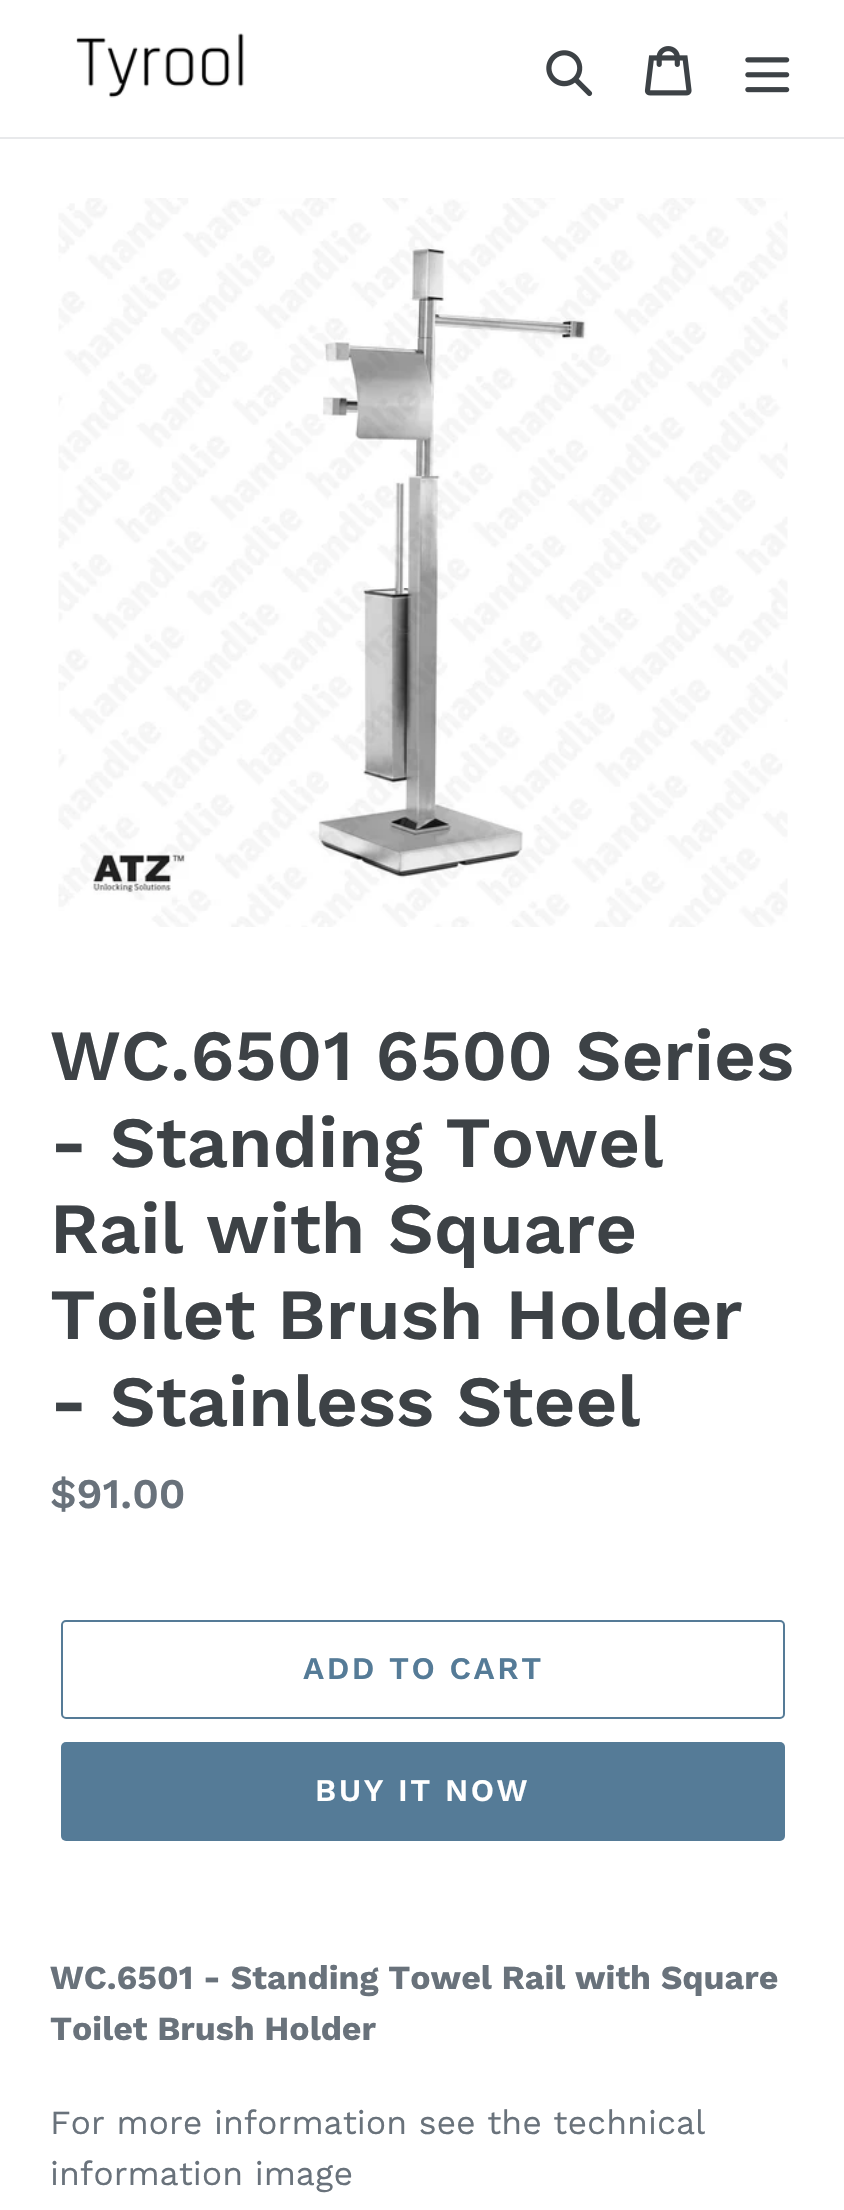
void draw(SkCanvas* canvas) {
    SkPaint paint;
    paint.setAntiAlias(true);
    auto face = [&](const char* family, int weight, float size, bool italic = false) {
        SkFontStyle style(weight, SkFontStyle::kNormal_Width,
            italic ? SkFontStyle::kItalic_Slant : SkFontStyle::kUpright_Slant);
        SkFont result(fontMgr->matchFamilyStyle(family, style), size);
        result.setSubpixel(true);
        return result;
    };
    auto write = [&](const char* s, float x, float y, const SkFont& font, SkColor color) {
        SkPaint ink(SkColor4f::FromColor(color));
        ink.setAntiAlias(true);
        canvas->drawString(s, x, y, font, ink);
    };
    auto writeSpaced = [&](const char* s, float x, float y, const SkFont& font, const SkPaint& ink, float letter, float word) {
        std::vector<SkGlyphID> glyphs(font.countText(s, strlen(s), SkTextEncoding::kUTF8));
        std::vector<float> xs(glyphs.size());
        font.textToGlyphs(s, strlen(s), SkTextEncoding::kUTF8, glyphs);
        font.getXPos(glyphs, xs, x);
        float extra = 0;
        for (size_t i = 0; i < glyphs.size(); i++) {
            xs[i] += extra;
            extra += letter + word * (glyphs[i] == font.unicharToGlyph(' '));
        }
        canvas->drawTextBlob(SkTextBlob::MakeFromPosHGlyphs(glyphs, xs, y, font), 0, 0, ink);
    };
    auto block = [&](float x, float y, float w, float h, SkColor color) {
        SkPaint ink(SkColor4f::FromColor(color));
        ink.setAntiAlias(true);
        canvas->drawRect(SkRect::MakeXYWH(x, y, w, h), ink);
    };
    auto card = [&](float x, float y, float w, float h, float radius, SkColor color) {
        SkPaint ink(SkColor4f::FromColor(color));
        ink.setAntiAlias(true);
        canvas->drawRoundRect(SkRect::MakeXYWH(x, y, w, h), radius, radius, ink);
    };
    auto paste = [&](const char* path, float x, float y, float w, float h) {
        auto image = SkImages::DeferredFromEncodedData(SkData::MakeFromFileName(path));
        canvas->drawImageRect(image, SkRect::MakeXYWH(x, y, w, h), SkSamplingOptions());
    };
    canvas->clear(SK_ColorWHITE);
    block(0, 137, 844, 2, SkColorSetRGB(232, 233, 235));
    paste("pic1.png", 76, 33, 168, 65);
    paste("pic2.png", 546, 50, 47, 47);
    paste("pic3.png", 644, 46, 48, 50);
    paste("pic4.png", 745, 57, 45, 36);
    paste("pic5.png", 58, 198, 730, 729);
    auto kFont1 = face("Work Sans", 600, 72);
    write("WC.6501 6500 Series", 50, 1080, kFont1, SkColorSetRGB(61, 66, 70));
    write("- Standing Towel", 50, 1167, kFont1, SkColorSetRGB(61, 66, 70));
    write("Rail with Square", 50, 1253, kFont1, SkColorSetRGB(61, 66, 70));
    write("Toilet Brush Holder", 50, 1339, kFont1, SkColorSetRGB(61, 66, 70));
    write("- Stainless Steel", 50, 1426, kFont1, SkColorSetRGB(61, 66, 70));
    auto kFont2 = face("Work Sans", 600, 42);
    write("$91.00", 50, 1508, kFont2, SkColorSetRGB(105, 114, 123));
    paint.setStyle(SkPaint::kStroke_Style);
    paint.setStrokeWidth(2);
    paint.setColor(SkColorSetRGB(85, 123, 151));
    canvas->drawRoundRect(SkRect::MakeXYWH(62, 1621, 722, 97), 4, 4, paint);
    auto kFont3 = face("Work Sans", 600, 31.5f);
    paint.setStyle(SkPaint::kFill_Style);
    writeSpaced("ADD TO CART", 303, 1679, kFont3, paint, 2.5f, 0);
    card(61, 1742, 724, 99, 5, SkColorSetRGB(85, 123, 151));
    paint.setColor(SK_ColorWHITE);
    writeSpaced("BUY IT NOW", 315, 1801, kFont3, paint, 2.5f, 0);
    auto kFont4 = face("Work Sans", 700, 33.75f);
    write("WC.6501 - Standing Towel Rail with Square", 50, 1989, kFont4, SkColorSetRGB(105, 114, 123));
    write("Toilet Brush Holder", 50, 2040, kFont4, SkColorSetRGB(105, 114, 123));
    auto kFont5 = face("Work Sans", 400, 33.75f);
    write("For more information see the technical", 50, 2134, kFont5, SkColorSetRGB(105, 114, 123));
    write("information image", 50, 2185, kFont5, SkColorSetRGB(105, 114, 123));
}
